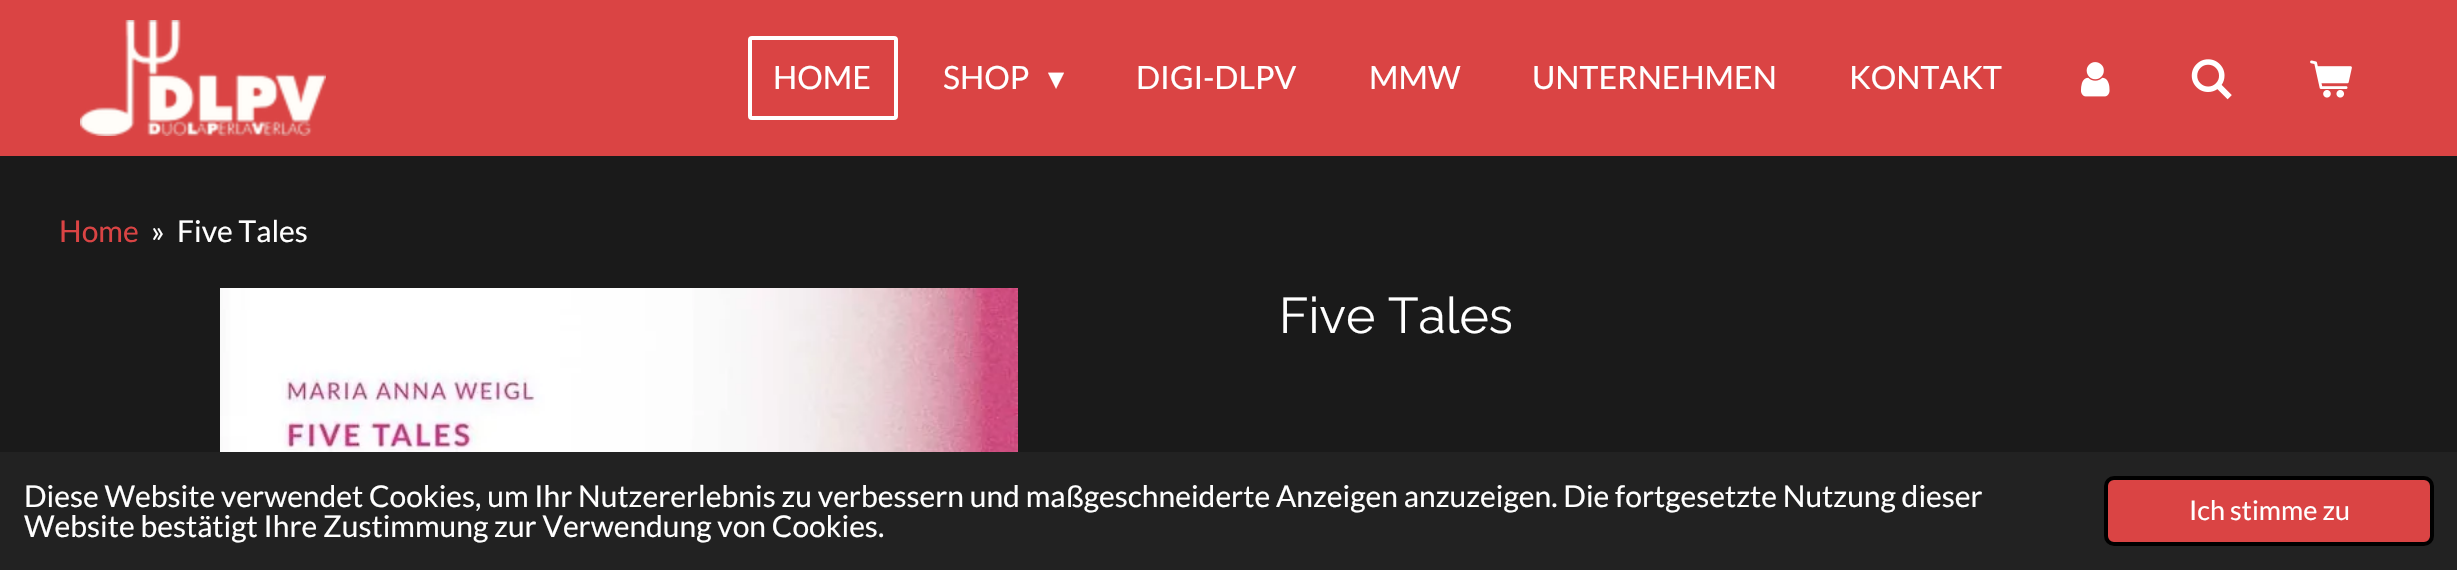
void draw(SkCanvas* canvas) {
    SkPaint paint;
    paint.setAntiAlias(true);
    auto face = [&](const char* family, int weight, float size, bool italic = false) {
        SkFontStyle style(weight, SkFontStyle::kNormal_Width,
            italic ? SkFontStyle::kItalic_Slant : SkFontStyle::kUpright_Slant);
        SkFont result(fontMgr->matchFamilyStyle(family, style), size);
        result.setSubpixel(true);
        return result;
    };
    auto write = [&](const char* s, float x, float y, const SkFont& font, SkColor color) {
        SkPaint ink(SkColor4f::FromColor(color));
        ink.setAntiAlias(true);
        canvas->drawString(s, x, y, font, ink);
    };
    auto block = [&](float x, float y, float w, float h, SkColor color) {
        SkPaint ink(SkColor4f::FromColor(color));
        ink.setAntiAlias(true);
        canvas->drawRect(SkRect::MakeXYWH(x, y, w, h), ink);
    };
    auto paste = [&](const char* path, float x, float y, float w, float h) {
        auto image = SkImages::DeferredFromEncodedData(SkData::MakeFromFileName(path));
        canvas->drawImageRect(image, SkRect::MakeXYWH(x, y, w, h), SkSamplingOptions());
    };
    canvas->clear(SkColorSetRGB(26, 26, 26));
    block(0, 0, 2457, 156, SkColorSetRGB(218, 68, 68));
    paste("pic1.png", 80, 20, 246, 116);
    paint.setStyle(SkPaint::kStroke_Style);
    paint.setStrokeWidth(4);
    paint.setColor(SK_ColorWHITE);
    canvas->drawRoundRect(SkRect::MakeXYWH(750, 38, 146, 80), 2, 2, paint);
    auto kFont1 = face("Lato", 400, 32);
    write("HOME", 773, 89, kFont1, SK_ColorWHITE);
    write("SHOP", 943, 89, kFont1, SK_ColorWHITE);
    auto kFont2 = face("DejaVu Sans", 400, 32);
    write("▾", 1048, 89, kFont2, SK_ColorWHITE);
    write("DIGI-DLPV", 1136, 89, kFont1, SK_ColorWHITE);
    write("MMW", 1369, 89, kFont1, SK_ColorWHITE);
    write("UNTERNEHMEN", 1532, 89, kFont1, SK_ColorWHITE);
    write("KONTAKT", 1849, 89, kFont1, SK_ColorWHITE);
    paste("pic2.png", 2081, 62, 29, 35);
    paste("pic3.png", 2191, 59, 41, 41);
    paste("pic4.png", 2310, 60, 42, 38);
    auto kFont3 = face("Lato", 400, 30);
    write("Home", 59, 242, kFont3, SkColorSetRGB(218, 68, 68));
    write("»", 151, 242, kFont3, SK_ColorWHITE);
    write("Five Tales", 177, 242, kFont3, SK_ColorWHITE);
    paste("pic5.png", 220, 288, 798, 164);
    auto kFont4 = face("Raleway", 400, 50);
    write("Five Tales", 1279, 333, kFont4, SK_ColorWHITE);
    block(0, 452, 2457, 118, SkColorSetRGB(34, 34, 34));
    write("Diese Website verwendet Cookies, um Ihr Nutzererlebnis zu verbessern und maßgeschneiderte Anzeigen anzuzeigen. Die fortgesetzte Nutzung dieser", 24, 507, kFont3, SK_ColorWHITE);
    write("Website bestätigt Ihre Zustimmung zur Verwendung von Cookies.", 24, 537, kFont3, SK_ColorWHITE);
    paint.setStyle(SkPaint::kFill_Style);
    paint.setColor(SkColorSetRGB(218, 68, 68));
    canvas->drawRoundRect(SkRect::MakeXYWH(2106, 478, 326, 66), 8, 8, paint);
    paint.setStyle(SkPaint::kStroke_Style);
    paint.setColor(SK_ColorBLACK);
    canvas->drawRoundRect(SkRect::MakeXYWH(2106, 478, 326, 66), 8, 8, paint);
    auto kFont5 = face("Lato", 400, 27);
    write("Ich stimme zu", 2189, 520, kFont5, SK_ColorWHITE);
}
